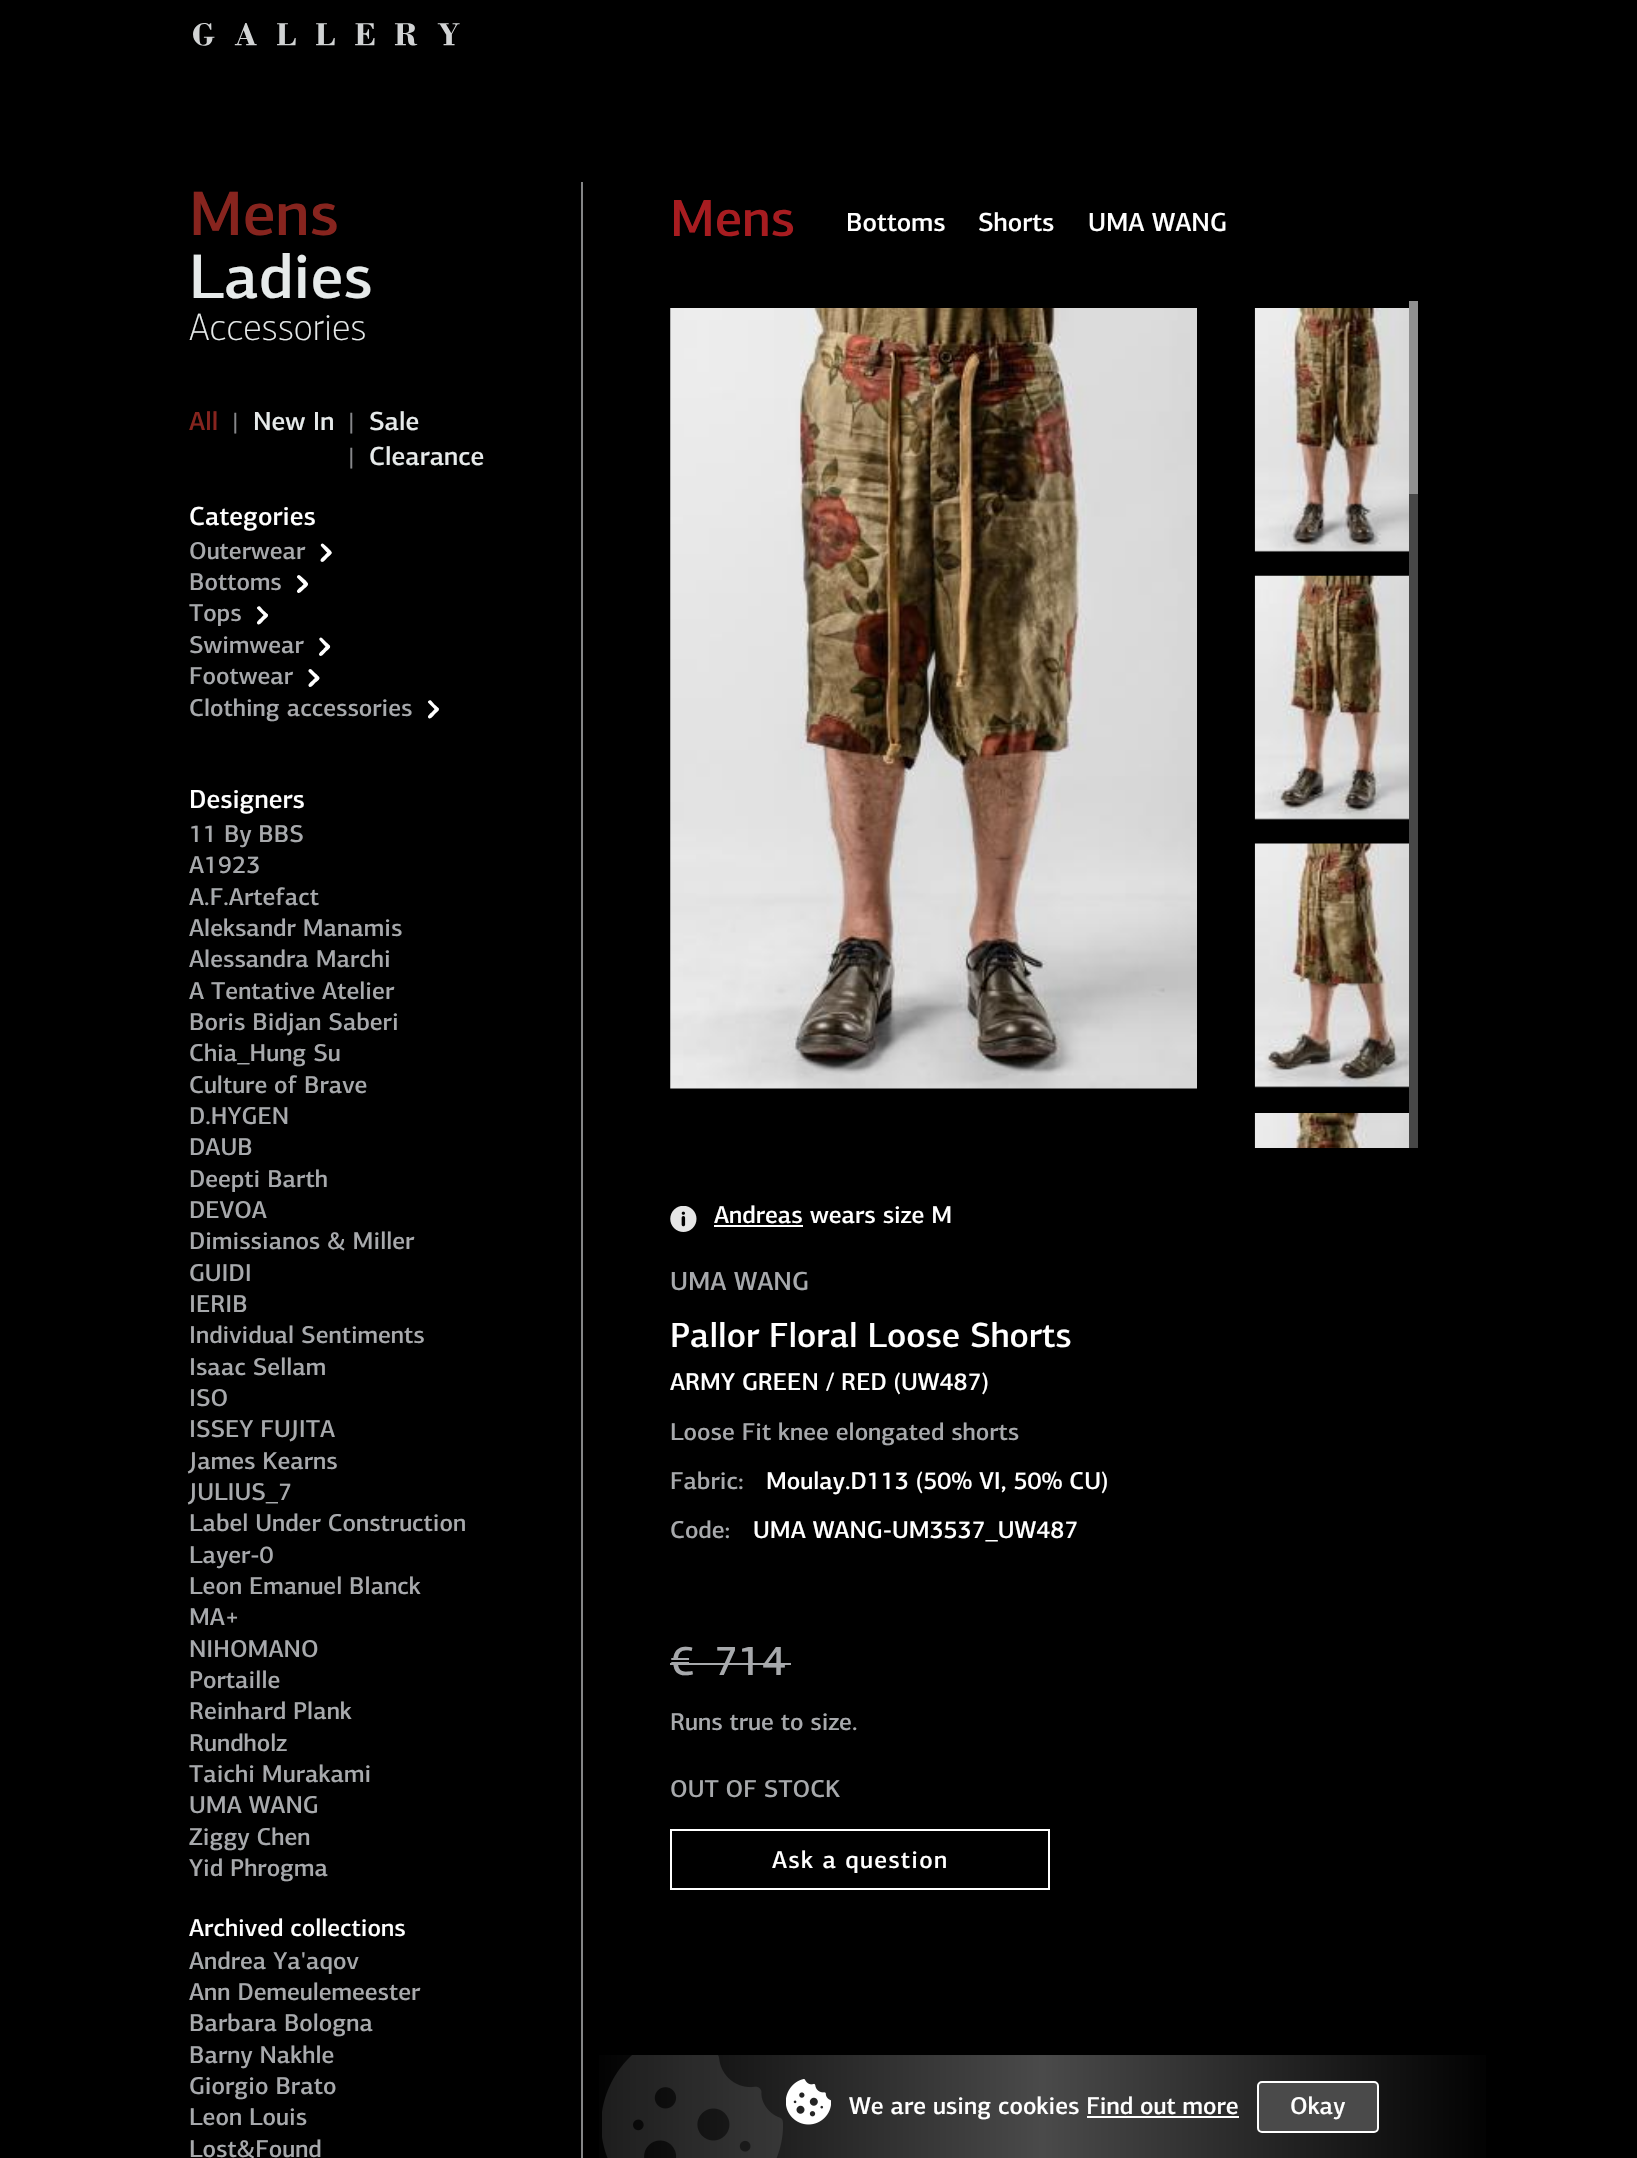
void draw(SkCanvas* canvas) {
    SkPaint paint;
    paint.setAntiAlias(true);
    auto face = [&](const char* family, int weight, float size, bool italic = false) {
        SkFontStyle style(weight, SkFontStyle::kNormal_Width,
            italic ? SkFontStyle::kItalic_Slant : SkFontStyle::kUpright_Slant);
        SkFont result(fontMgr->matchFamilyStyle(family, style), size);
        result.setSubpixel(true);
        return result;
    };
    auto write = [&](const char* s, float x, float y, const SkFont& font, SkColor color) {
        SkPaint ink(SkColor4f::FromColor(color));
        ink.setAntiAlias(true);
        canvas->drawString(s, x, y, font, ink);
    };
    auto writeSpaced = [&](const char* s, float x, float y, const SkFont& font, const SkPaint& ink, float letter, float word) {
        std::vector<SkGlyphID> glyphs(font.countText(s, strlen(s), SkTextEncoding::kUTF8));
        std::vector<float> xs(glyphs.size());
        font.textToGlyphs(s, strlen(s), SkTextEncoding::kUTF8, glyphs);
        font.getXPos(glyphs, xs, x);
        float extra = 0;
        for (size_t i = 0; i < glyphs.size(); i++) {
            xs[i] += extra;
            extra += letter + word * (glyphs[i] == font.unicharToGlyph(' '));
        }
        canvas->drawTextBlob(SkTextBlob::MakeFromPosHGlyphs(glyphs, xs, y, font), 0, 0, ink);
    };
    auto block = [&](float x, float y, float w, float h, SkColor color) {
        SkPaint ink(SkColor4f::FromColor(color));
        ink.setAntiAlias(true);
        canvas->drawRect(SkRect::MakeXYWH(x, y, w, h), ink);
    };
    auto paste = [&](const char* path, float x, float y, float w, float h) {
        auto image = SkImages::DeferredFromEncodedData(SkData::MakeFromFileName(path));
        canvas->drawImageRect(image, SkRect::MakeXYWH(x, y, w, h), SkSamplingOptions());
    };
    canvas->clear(SK_ColorBLACK);
    paste("pic1.png", 193, 23, 267, 23);
    auto kFont1 = face("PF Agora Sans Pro", 500, 63);
    write("Mens", 189, 235, kFont1, SkColorSetRGB(135, 36, 30));
    write("Ladies", 189, 298, kFont1, SkColorSetRGB(230, 234, 234));
    auto kFont2 = face("PF Agora Sans Pro", 100, 38.5f);
    write("Accessories", 189, 340, kFont2, SkColorSetRGB(230, 234, 234));
    auto kFont3 = face("PF Agora Sans Pro", 500, 26.25f);
    write("All", 189, 430, kFont3, SkColorSetRGB(135, 36, 30));
    auto kFont4 = face("PF Agora Sans Pro", 500, 24.5f);
    write("|", 232, 430, kFont4, SkColorSetRGB(134, 135, 138));
    write("New In", 253, 430, kFont3, SkColorSetRGB(230, 234, 234));
    write("|", 348, 430, kFont4, SkColorSetRGB(134, 135, 138));
    write("Sale", 369, 430, kFont3, SkColorSetRGB(230, 234, 234));
    write("|", 348, 465, kFont4, SkColorSetRGB(134, 135, 138));
    write("Clearance", 369, 465, kFont3, SkColorSetRGB(230, 234, 234));
    write("Categories", 189, 525, kFont3, SK_ColorWHITE);
    write("Outerwear", 189, 559, kFont4, SkColorSetRGB(167, 169, 172));
    paint.setColor(SK_ColorWHITE);
    canvas->drawPath(SkPathBuilder().moveTo(323.5f, 544).lineTo(327.5f, 547.5f).cubicTo(328.5f, 549, 332.5f, 551.5f, 331.5f, 553.5f).cubicTo(329.5f, 556, 327, 552.5f, 326, 551.5f).lineTo(321, 546).cubicTo(320, 544, 322.5f, 542.5f, 323.5f, 544).close().detach(), paint);
    canvas->drawPath(SkPathBuilder().moveTo(331, 551.5f).cubicTo(333, 553.5f, 328.5f, 556.5f, 327.5f, 557.5f).cubicTo(326.5f, 558.5f, 323, 563.5f, 321, 561.5f).cubicTo(319, 559.5f, 324, 556, 325, 555).cubicTo(326, 554, 329, 549.5f, 331, 551.5f).close().moveTo(300, 575.5f).lineTo(304, 579).cubicTo(305, 580, 309, 583, 307.5f, 585).cubicTo(306, 587.5f, 303.5f, 584, 302.5f, 583).lineTo(297, 577.5f).cubicTo(296.5f, 575.5f, 299, 574, 300, 575.5f).close().detach(), paint);
    write("Bottoms", 189, 590, kFont4, SkColorSetRGB(167, 169, 172));
    canvas->drawPath(SkPathBuilder().moveTo(307.5f, 583).cubicTo(309.5f, 585, 305, 588, 304, 589).cubicTo(302.5f, 590, 299.5f, 594.5f, 297.5f, 592.5f).cubicTo(295.5f, 590.5f, 300, 587.5f, 301.5f, 586.5f).cubicTo(302.5f, 585.5f, 305.5f, 581, 307.5f, 583).close().moveTo(260, 606.5f).lineTo(263.5f, 610.5f).cubicTo(264.5f, 611.5f, 269, 614.5f, 267.5f, 616.5f).cubicTo(266, 618.5f, 263.5f, 615, 262.5f, 614).lineTo(257, 608.5f).cubicTo(256.5f, 607, 258.5f, 605.5f, 260, 606.5f).close().detach(), paint);
    write("Tops", 189, 621, kFont4, SkColorSetRGB(167, 169, 172));
    canvas->drawPath(SkPathBuilder().moveTo(267.5f, 614).cubicTo(269.5f, 616, 264.5f, 619.5f, 263.5f, 620.5f).cubicTo(262.5f, 621.5f, 259.5f, 626, 257.5f, 624).cubicTo(255.5f, 622, 260, 619, 261, 618).cubicTo(262, 617, 265.5f, 612, 267.5f, 614).close().detach(), paint);
    write("Swimwear", 189, 653, kFont4, SkColorSetRGB(167, 169, 172));
    canvas->drawPath(SkPathBuilder().moveTo(322, 638).lineTo(326, 642).cubicTo(327, 643, 331, 645.5f, 330, 647.5f).cubicTo(328, 650, 325.5f, 646.5f, 324.5f, 645.5f).lineTo(319.5f, 640).cubicTo(318.5f, 638, 321, 636.5f, 322, 638).close().detach(), paint);
    canvas->drawPath(SkPathBuilder().moveTo(329.5f, 645.5f).cubicTo(331.5f, 647.5f, 327, 650.5f, 326, 651.5f).cubicTo(325, 652.5f, 321.5f, 657.5f, 319.5f, 655.5f).cubicTo(317.5f, 653.5f, 322.5f, 650.5f, 323.5f, 649).cubicTo(324.5f, 648, 327.5f, 643.5f, 329.5f, 645.5f).close().moveTo(311.5f, 669.5f).lineTo(315, 673).cubicTo(316, 674, 320.5f, 677, 319, 679).cubicTo(317.5f, 681.5f, 315, 678, 314, 677).lineTo(308.5f, 671.5f).cubicTo(308, 669.5f, 310, 668, 311.5f, 669.5f).close().detach(), paint);
    write("Footwear", 189, 684, kFont4, SkColorSetRGB(167, 169, 172));
    canvas->drawPath(SkPathBuilder().moveTo(319, 677).cubicTo(321, 679, 316, 682, 315, 683).cubicTo(314, 684, 311, 688.5f, 309, 686.5f).cubicTo(307, 684.5f, 311.5f, 681.5f, 312.5f, 680.5f).cubicTo(313.5f, 679.5f, 317, 675, 319, 677).close().detach(), paint);
    write("Clothing accessories", 189, 716, kFont4, SkColorSetRGB(167, 169, 172));
    canvas->drawPath(SkPathBuilder().moveTo(431, 700.5f).lineTo(434.5f, 704.5f).cubicTo(435.5f, 705.5f, 440, 708.5f, 438.5f, 710.5f).cubicTo(437, 713, 434.5f, 709, 433.5f, 708).lineTo(428, 702.5f).cubicTo(427.5f, 701, 429.5f, 699.5f, 431, 700.5f).close().detach(), paint);
    canvas->drawPath(SkPathBuilder().moveTo(438.5f, 708).cubicTo(440, 710, 435.5f, 713.5f, 434.5f, 714.5f).cubicTo(433.5f, 715.5f, 430.5f, 720, 428.5f, 718).cubicTo(426.5f, 716, 431, 713, 432, 712).cubicTo(433, 711, 436.5f, 706, 438.5f, 708).close().detach(), paint);
    write("Designers", 189, 808, kFont3, SK_ColorWHITE);
    write("11 By BBS", 189, 842, kFont4, SkColorSetRGB(167, 169, 172));
    write("A1923", 189, 873, kFont4, SkColorSetRGB(167, 169, 172));
    write("A.F.Artefact", 189, 905, kFont4, SkColorSetRGB(167, 169, 172));
    write("Aleksandr Manamis", 189, 936, kFont4, SkColorSetRGB(167, 169, 172));
    write("Alessandra Marchi", 189, 967, kFont4, SkColorSetRGB(167, 169, 172));
    write("A Tentative Atelier", 189, 999, kFont4, SkColorSetRGB(167, 169, 172));
    write("Boris Bidjan Saberi", 189, 1030, kFont4, SkColorSetRGB(167, 169, 172));
    write("Chia_Hung Su", 189, 1061, kFont4, SkColorSetRGB(167, 169, 172));
    write("Culture of Brave", 189, 1093, kFont4, SkColorSetRGB(167, 169, 172));
    write("D.HYGEN", 189, 1124, kFont4, SkColorSetRGB(167, 169, 172));
    write("DAUB", 189, 1155, kFont4, SkColorSetRGB(167, 169, 172));
    write("Deepti Barth", 189, 1187, kFont4, SkColorSetRGB(167, 169, 172));
    write("DEVOA", 189, 1218, kFont4, SkColorSetRGB(167, 169, 172));
    write("Dimissianos & Miller", 189, 1249, kFont4, SkColorSetRGB(167, 169, 172));
    write("GUIDI", 189, 1281, kFont4, SkColorSetRGB(167, 169, 172));
    write("IERIB", 189, 1312, kFont4, SkColorSetRGB(167, 169, 172));
    write("Individual Sentiments", 189, 1343, kFont4, SkColorSetRGB(167, 169, 172));
    write("Isaac Sellam", 189, 1375, kFont4, SkColorSetRGB(167, 169, 172));
    write("ISO", 189, 1406, kFont4, SkColorSetRGB(167, 169, 172));
    write("ISSEY FUJITA", 189, 1437, kFont4, SkColorSetRGB(167, 169, 172));
    write("James Kearns", 189, 1469, kFont4, SkColorSetRGB(167, 169, 172));
    write("JULIUS_7", 189, 1500, kFont4, SkColorSetRGB(167, 169, 172));
    write("Label Under Construction", 189, 1531, kFont4, SkColorSetRGB(167, 169, 172));
    write("Layer-0", 189, 1563, kFont4, SkColorSetRGB(167, 169, 172));
    write("Leon Emanuel Blanck", 189, 1594, kFont4, SkColorSetRGB(167, 169, 172));
    write("MA+", 189, 1625, kFont4, SkColorSetRGB(167, 169, 172));
    write("NIHOMANO", 189, 1657, kFont4, SkColorSetRGB(167, 169, 172));
    write("Portaille", 189, 1688, kFont4, SkColorSetRGB(167, 169, 172));
    write("Reinhard Plank", 189, 1719, kFont4, SkColorSetRGB(167, 169, 172));
    write("Rundholz", 189, 1751, kFont4, SkColorSetRGB(167, 169, 172));
    write("Taichi Murakami", 189, 1782, kFont4, SkColorSetRGB(167, 169, 172));
    write("UMA WANG", 189, 1813, kFont4, SkColorSetRGB(167, 169, 172));
    write("Ziggy Chen", 189, 1845, kFont4, SkColorSetRGB(167, 169, 172));
    write("Yid Phrogma", 189, 1876, kFont4, SkColorSetRGB(167, 169, 172));
    write("Archived collections", 189, 1936, kFont4, SK_ColorWHITE);
    write("Andrea Ya'aqov", 189, 1969, kFont4, SkColorSetRGB(167, 169, 172));
    write("Ann Demeulemeester", 189, 2000, kFont4, SkColorSetRGB(167, 169, 172));
    write("Barbara Bologna", 189, 2031, kFont4, SkColorSetRGB(167, 169, 172));
    write("Barny Nakhle", 189, 2063, kFont4, SkColorSetRGB(167, 169, 172));
    write("Giorgio Brato", 189, 2094, kFont4, SkColorSetRGB(167, 169, 172));
    write("Leon Louis", 189, 2125, kFont4, SkColorSetRGB(167, 169, 172));
    write("Lost&Found", 189, 2157, kFont4, SkColorSetRGB(167, 169, 172));
    block(581, 182, 2, 1976, SkColorSetRGB(132, 133, 134));
    auto kFont5 = face("PF Agora Sans Pro", 500, 52.5f);
    write("Mens", 670, 236, kFont5, SkColorSetRGB(167, 28, 32));
    write("Bottoms", 846, 231, kFont3, SK_ColorWHITE);
    write("Shorts", 978, 231, kFont3, SK_ColorWHITE);
    write("UMA WANG", 1088, 231, kFont3, SK_ColorWHITE);
    paste("pic2.png", 670, 308, 527, 781);
    paste("pic3.png", 1254, 308, 155, 244);
    paste("pic4.png", 1254, 575, 155, 245);
    paste("pic5.png", 1254, 843, 155, 245);
    paste("pic6.png", 1254, 1113, 155, 35);
    paste("pic7.png", 670, 1206, 27, 26);
    write("Andreas", 714, 1223, kFont4, SK_ColorWHITE);
    block(714, 1225, 89, 2, SK_ColorWHITE);
    write("wears size M", 810, 1223, kFont4, SK_ColorWHITE);
    write("UMA WANG", 670, 1290, kFont3, SkColorSetRGB(167, 169, 172));
    auto kFont6 = face("PF Agora Sans Pro", 500, 35);
    write("Pallor Floral Loose Shorts", 670, 1347, kFont6, SK_ColorWHITE);
    write("ARMY GREEN / RED (UW487)", 670, 1390, kFont4, SK_ColorWHITE);
    write("Loose Fit knee elongated shorts", 670, 1440, kFont4, SkColorSetRGB(167, 169, 172));
    write("Fabric:", 670, 1489, kFont4, SkColorSetRGB(167, 169, 172));
    write("Moulay.D113 (50% VI, 50% CU)", 766, 1489, kFont4, SK_ColorWHITE);
    write("Code:", 670, 1538, kFont4, SkColorSetRGB(167, 169, 172));
    write("UMA WANG-UM3537_UW487", 753, 1538, kFont4, SK_ColorWHITE);
    auto kFont7 = face("PF Agora Sans Pro", 500, 42);
    write("€", 670, 1675, kFont7, SkColorSetRGB(167, 169, 172));
    write("714", 714, 1675, kFont7, SkColorSetRGB(167, 169, 172));
    block(670, 1663, 121, 2, SkColorSetRGB(167, 169, 172));
    write("Runs true to size.", 670, 1730, kFont4, SkColorSetRGB(167, 169, 172));
    write("OUT OF STOCK", 670, 1797, kFont4, SkColorSetRGB(167, 169, 172));
    paint.setStyle(SkPaint::kStroke_Style);
    paint.setStrokeWidth(2);
    canvas->drawRect(SkRect::MakeXYWH(671, 1830, 378, 59), paint);
    paint.setStyle(SkPaint::kFill_Style);
    writeSpaced("Ask a question", 772, 1868, kFont4, paint, 1.25f, 0);
    {
        const SkColor colors[] = {SK_ColorBLACK, SkColorSetRGB(74, 74, 74), SK_ColorBLACK};
        const float stops[] = {0, 0.5f, 1};
        const SkPoint ends[] = {{583, 2107}, {1502, 2107}};
        paint.setShader(SkGradientShader::MakeLinear(ends, colors, stops, 3, SkTileMode::kClamp));
        paint.setAlpha(255);
    }
    canvas->drawRect(SkRect::MakeXYWH(599, 2055, 887, 103), paint);
    paste("pic8.png", 602, 2055, 181, 103);
    paste("pic9.png", 786, 2079, 45, 46);
    write("We are using cookies Find out more", 849, 2114, kFont4, SK_ColorWHITE);
    block(1087, 2116, 152, 2, SK_ColorWHITE);
    paint.setShader(nullptr);
    paint.setColor(SkColorSetRGB(74, 74, 74));
    canvas->drawRoundRect(SkRect::MakeXYWH(1258, 2082, 120, 50), 4, 4, paint);
    paint.setStyle(SkPaint::kStroke_Style);
    paint.setColor(SK_ColorWHITE);
    canvas->drawRoundRect(SkRect::MakeXYWH(1258, 2082, 120, 50), 4, 4, paint);
    write("Okay", 1290, 2114, kFont4, SK_ColorWHITE);
    block(1409, 494, 9, 654, SkColorSetRGB(71, 71, 71));
    block(1409, 301, 9, 193, SkColorSetRGB(145, 145, 145));
}
